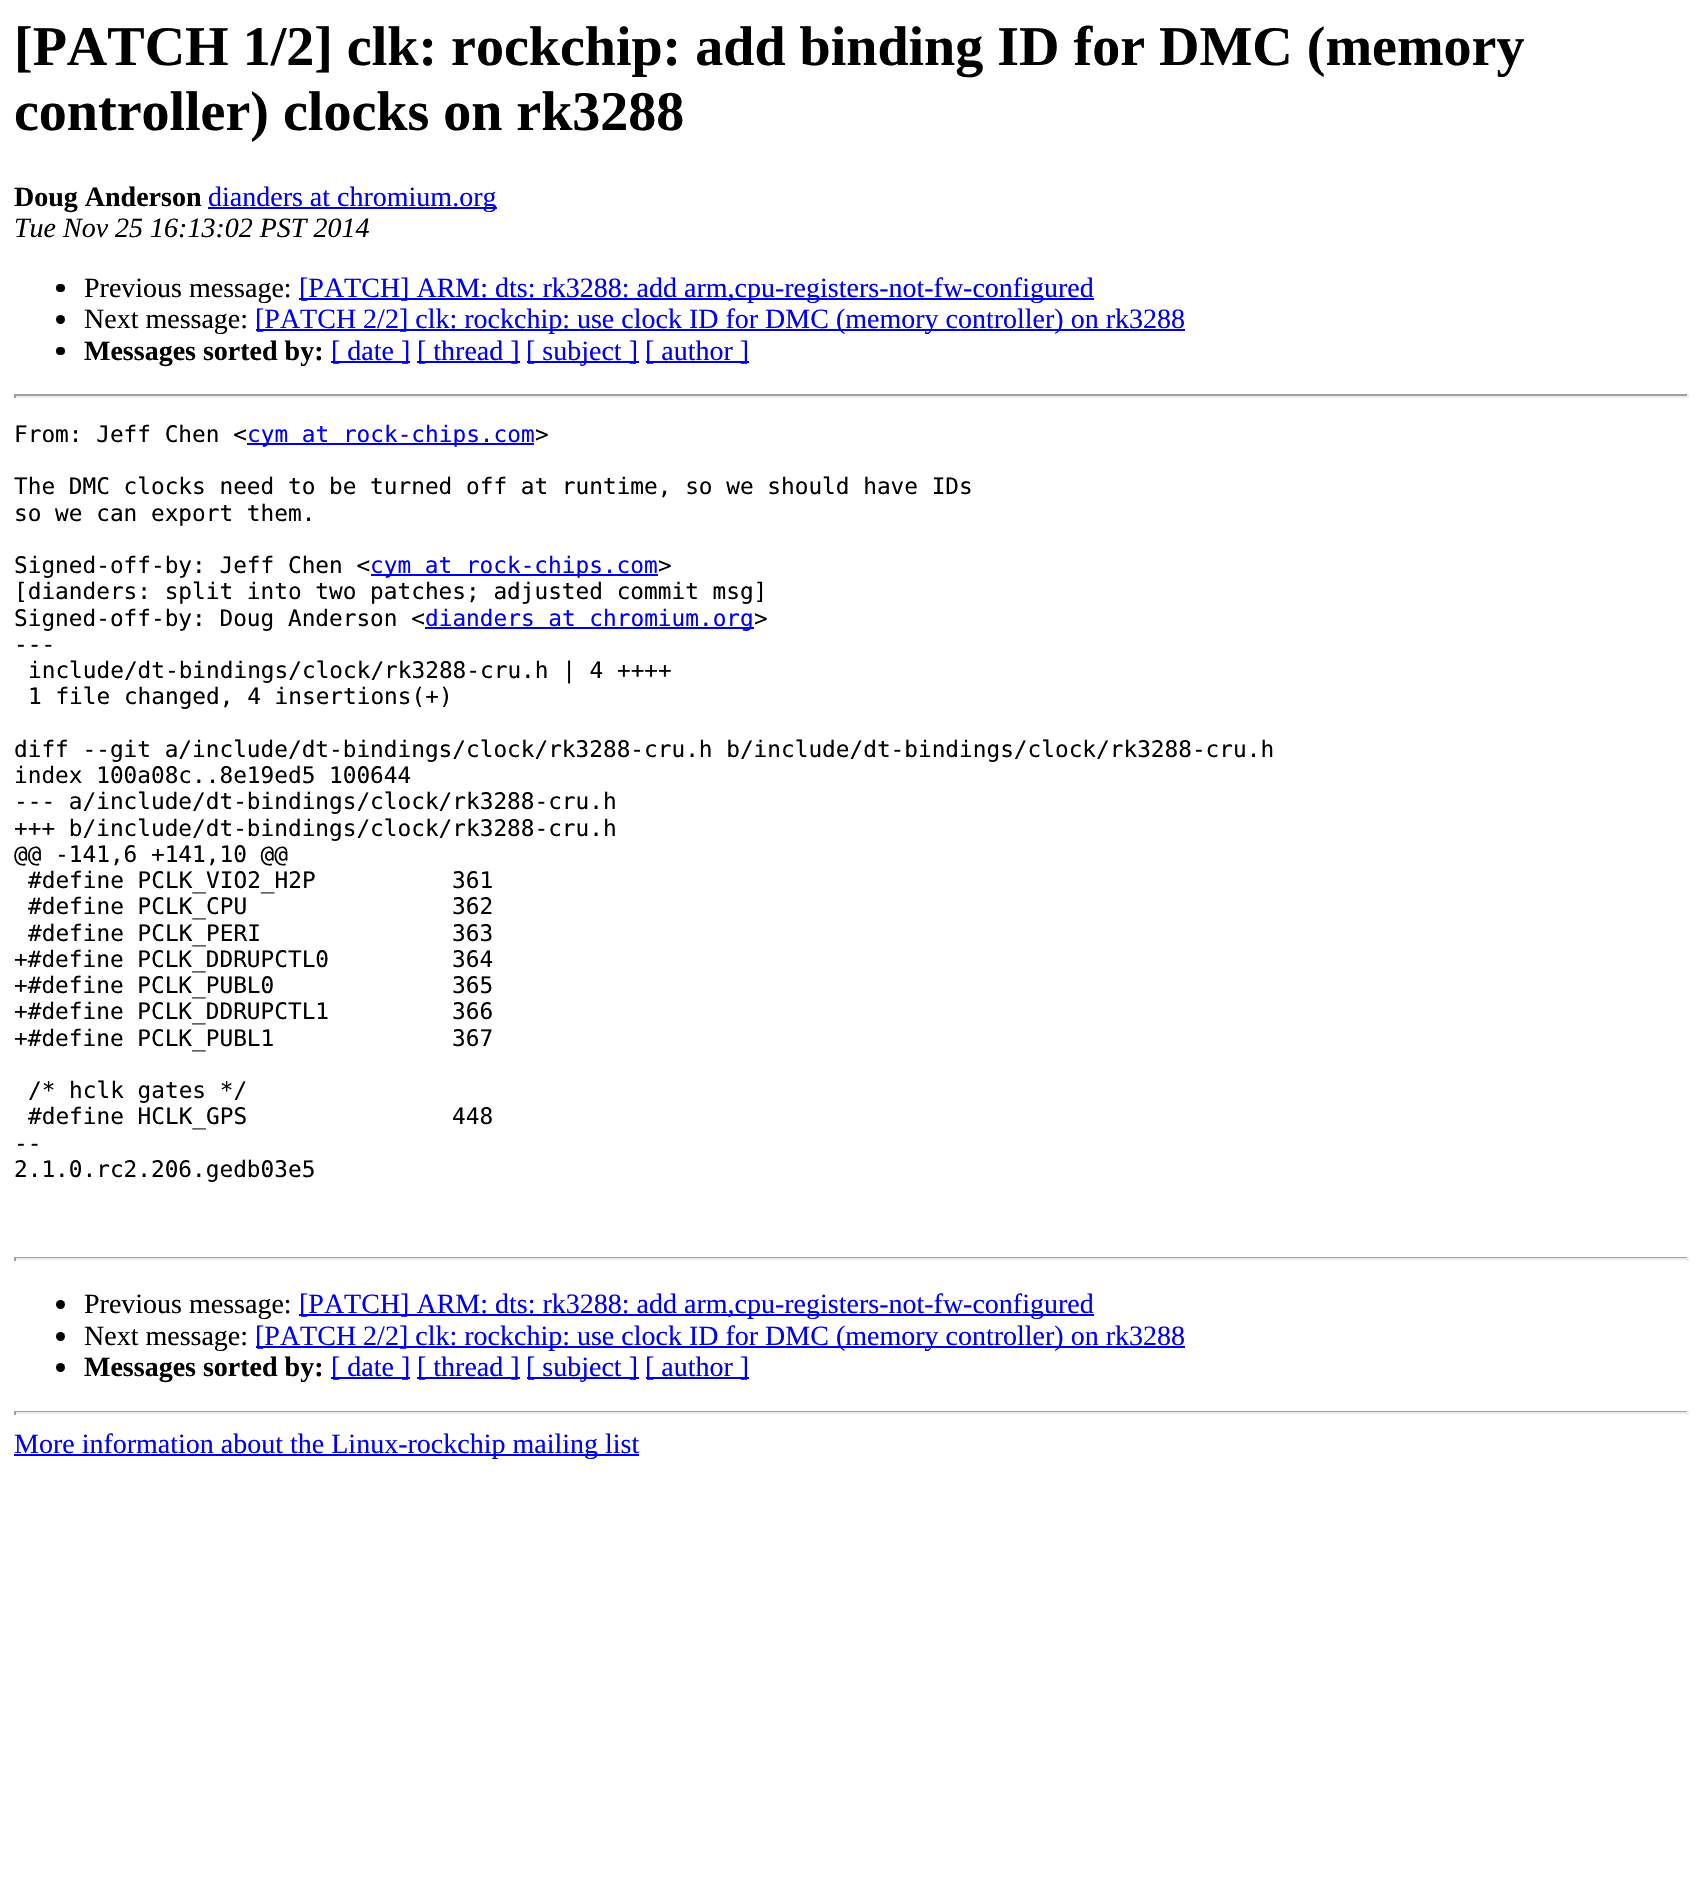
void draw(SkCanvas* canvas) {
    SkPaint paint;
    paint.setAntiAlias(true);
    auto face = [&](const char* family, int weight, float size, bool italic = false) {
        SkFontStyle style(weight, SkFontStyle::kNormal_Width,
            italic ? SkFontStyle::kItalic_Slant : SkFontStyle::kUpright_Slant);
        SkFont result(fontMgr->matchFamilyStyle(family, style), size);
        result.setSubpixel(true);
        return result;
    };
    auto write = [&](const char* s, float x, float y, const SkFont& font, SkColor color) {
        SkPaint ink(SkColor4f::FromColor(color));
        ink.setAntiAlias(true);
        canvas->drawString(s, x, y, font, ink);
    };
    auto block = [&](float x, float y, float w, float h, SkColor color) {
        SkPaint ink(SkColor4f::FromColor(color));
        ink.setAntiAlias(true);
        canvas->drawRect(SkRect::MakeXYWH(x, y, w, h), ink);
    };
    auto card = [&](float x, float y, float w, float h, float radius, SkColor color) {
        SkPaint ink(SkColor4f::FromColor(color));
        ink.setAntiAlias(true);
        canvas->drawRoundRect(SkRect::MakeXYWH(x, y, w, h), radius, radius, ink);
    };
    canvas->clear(SK_ColorWHITE);
    auto kFont1 = face("Liberation Serif", 700, 56);
    write("[PATCH 1/2] clk: rockchip: add binding ID for DMC (memory", 14, 65, kFont1, SK_ColorBLACK);
    write("controller) clocks on rk3288", 14, 130, kFont1, SK_ColorBLACK);
    auto kFont2 = face("Liberation Serif", 700, 28);
    write("Doug Anderson", 14, 206, kFont2, SK_ColorBLACK);
    block(208, 207, 289, 2, SkColorSetRGB(0, 0, 238));
    auto kFont3 = face("Liberation Serif", 400, 28);
    write("dianders at chromium.org", 208, 206, kFont3, SkColorSetRGB(0, 0, 238));
    auto kFont4 = face("Liberation Serif", 400, 28, true);
    write("Tue Nov 25 16:13:02 PST 2014", 14, 237, kFont4, SK_ColorBLACK);
    card(56, 284, 9, 8, 4, SK_ColorBLACK);
    write("Previous message:", 84, 297, kFont3, SK_ColorBLACK);
    block(299, 298, 795, 2, SkColorSetRGB(0, 0, 238));
    write("[PATCH] ARM: dts: rk3288: add arm,cpu-registers-not-fw-configured", 299, 297, kFont3, SkColorSetRGB(0, 0, 238));
    paint.setColor(SK_ColorBLACK);
    canvas->drawCircle(60.5f, 319.5f, 4.5f, paint);
    write("Next message:", 84, 328, kFont3, SK_ColorBLACK);
    block(256, 329, 929, 2, SkColorSetRGB(0, 0, 238));
    write("[PATCH 2/2] clk: rockchip: use clock ID for DMC (memory controller) on rk3288", 255, 328, kFont3, SkColorSetRGB(0, 0, 238));
    card(56, 347, 9, 8, 4, SK_ColorBLACK);
    write("Messages sorted by:", 84, 360, kFont2, SK_ColorBLACK);
    block(331, 361, 79, 2, SkColorSetRGB(0, 0, 238));
    write("[ date ]", 331, 360, kFont3, SkColorSetRGB(0, 0, 238));
    block(417, 361, 103, 2, SkColorSetRGB(0, 0, 238));
    write("[ thread ]", 417, 360, kFont3, SkColorSetRGB(0, 0, 238));
    block(527, 361, 112, 2, SkColorSetRGB(0, 0, 238));
    write("[ subject ]", 526, 360, kFont3, SkColorSetRGB(0, 0, 238));
    block(646, 361, 103, 2, SkColorSetRGB(0, 0, 238));
    write("[ author ]", 645, 360, kFont3, SkColorSetRGB(0, 0, 238));
    block(14, 394, 1675, 2, SkColorSetRGB(159, 159, 159));
    block(1687, 394, 2, 4, SkColorSetRGB(238, 238, 238));
    block(14, 396, 1675, 2, SkColorSetRGB(238, 238, 238));
    block(14, 394, 2, 4, SkColorSetRGB(159, 159, 159));
    auto kFont5 = face("DejaVu Sans Mono", 400, 22.75f);
    write("From: Jeff Chen <", 14, 442, kFont5, SK_ColorBLACK);
    block(247, 443, 287, 2, SkColorSetRGB(0, 0, 238));
    write("cym at rock-chips.com", 247, 442, kFont5, SkColorSetRGB(0, 0, 238));
    write(">", 535, 442, kFont5, SK_ColorBLACK);
    write("The DMC clocks need to be turned off at runtime, so we should have IDs", 14, 494, kFont5, SK_ColorBLACK);
    write("so we can export them.", 14, 521, kFont5, SK_ColorBLACK);
    write("Signed-off-by: Jeff Chen <", 14, 573, kFont5, SK_ColorBLACK);
    block(371, 574, 287, 2, SkColorSetRGB(0, 0, 238));
    write("cym at rock-chips.com", 370, 573, kFont5, SkColorSetRGB(0, 0, 238));
    write(">", 658, 573, kFont5, SK_ColorBLACK);
    write("[dianders: split into two patches; adjusted commit msg]", 14, 599, kFont5, SK_ColorBLACK);
    write("Signed-off-by: Doug Anderson <", 14, 626, kFont5, SK_ColorBLACK);
    block(425, 627, 329, 2, SkColorSetRGB(0, 0, 238));
    write("dianders at chromium.org", 425, 626, kFont5, SkColorSetRGB(0, 0, 238));
    write(">", 754, 626, kFont5, SK_ColorBLACK);
    write("---", 14, 652, kFont5, SK_ColorBLACK);
    write("include/dt-bindings/clock/rk3288-cru.h | 4 ++++", 28, 678, kFont5, SK_ColorBLACK);
    write("1 file changed, 4 insertions(+)", 28, 704, kFont5, SK_ColorBLACK);
    write("diff --git a/include/dt-bindings/clock/rk3288-cru.h b/include/dt-bindings/clock/rk3288-cru.h", 14, 757, kFont5, SK_ColorBLACK);
    write("index 100a08c..8e19ed5 100644", 14, 783, kFont5, SK_ColorBLACK);
    write("--- a/include/dt-bindings/clock/rk3288-cru.h", 14, 809, kFont5, SK_ColorBLACK);
    write("+++ b/include/dt-bindings/clock/rk3288-cru.h", 14, 836, kFont5, SK_ColorBLACK);
    write("@@ -141,6 +141,10 @@", 14, 862, kFont5, SK_ColorBLACK);
    write("#define PCLK_VIO2_H2P", 28, 888, kFont5, SK_ColorBLACK);
    write("361", 452, 888, kFont5, SK_ColorBLACK);
    write("#define PCLK_CPU", 28, 914, kFont5, SK_ColorBLACK);
    write("362", 452, 914, kFont5, SK_ColorBLACK);
    write("#define PCLK_PERI", 28, 941, kFont5, SK_ColorBLACK);
    write("363", 452, 941, kFont5, SK_ColorBLACK);
    write("+#define PCLK_DDRUPCTL0", 14, 967, kFont5, SK_ColorBLACK);
    write("364", 452, 967, kFont5, SK_ColorBLACK);
    write("+#define PCLK_PUBL0", 14, 993, kFont5, SK_ColorBLACK);
    write("365", 452, 993, kFont5, SK_ColorBLACK);
    write("+#define PCLK_DDRUPCTL1", 14, 1019, kFont5, SK_ColorBLACK);
    write("366", 452, 1019, kFont5, SK_ColorBLACK);
    write("+#define PCLK_PUBL1", 14, 1046, kFont5, SK_ColorBLACK);
    write("367", 452, 1046, kFont5, SK_ColorBLACK);
    write("/* hclk gates */", 28, 1098, kFont5, SK_ColorBLACK);
    write("#define HCLK_GPS", 28, 1124, kFont5, SK_ColorBLACK);
    write("448", 452, 1124, kFont5, SK_ColorBLACK);
    write("--", 14, 1151, kFont5, SK_ColorBLACK);
    write("2.1.0.rc2.206.gedb03e5", 14, 1177, kFont5, SK_ColorBLACK);
    block(14, 1257, 1675, 1, SkColorSetRGB(159, 159, 159));
    block(1687, 1257, 2, 4, SkColorSetRGB(238, 238, 238));
    block(14, 1258, 1675, 2, SkColorSetRGB(238, 238, 238));
    block(14, 1257, 2, 4, SkColorSetRGB(159, 159, 159));
    canvas->drawCircle(60.5f, 1304.5f, 4.5f, paint);
    write("Previous message:", 84, 1313, kFont3, SK_ColorBLACK);
    block(299, 1314, 795, 2, SkColorSetRGB(0, 0, 238));
    write("[PATCH] ARM: dts: rk3288: add arm,cpu-registers-not-fw-configured", 299, 1313, kFont3, SkColorSetRGB(0, 0, 238));
    canvas->drawCircle(60.5f, 1336.5f, 4.5f, paint);
    write("Next message:", 84, 1345, kFont3, SK_ColorBLACK);
    block(256, 1346, 929, 2, SkColorSetRGB(0, 0, 238));
    write("[PATCH 2/2] clk: rockchip: use clock ID for DMC (memory controller) on rk3288", 255, 1345, kFont3, SkColorSetRGB(0, 0, 238));
    canvas->drawCircle(60.5f, 1367.5f, 4.5f, paint);
    write("Messages sorted by:", 84, 1376, kFont2, SK_ColorBLACK);
    block(331, 1377, 79, 2, SkColorSetRGB(0, 0, 238));
    write("[ date ]", 331, 1376, kFont3, SkColorSetRGB(0, 0, 238));
    block(417, 1377, 103, 2, SkColorSetRGB(0, 0, 238));
    write("[ thread ]", 417, 1376, kFont3, SkColorSetRGB(0, 0, 238));
    block(527, 1377, 112, 2, SkColorSetRGB(0, 0, 238));
    write("[ subject ]", 526, 1376, kFont3, SkColorSetRGB(0, 0, 238));
    block(646, 1377, 103, 2, SkColorSetRGB(0, 0, 238));
    write("[ author ]", 645, 1376, kFont3, SkColorSetRGB(0, 0, 238));
    block(14, 1411, 1675, 1, SkColorSetRGB(159, 159, 159));
    block(1687, 1411, 2, 4, SkColorSetRGB(238, 238, 238));
    block(14, 1412, 1675, 2, SkColorSetRGB(238, 238, 238));
    block(14, 1411, 2, 4, SkColorSetRGB(159, 159, 159));
    block(14, 1454, 625, 2, SkColorSetRGB(0, 0, 238));
    write("More information about the Linux-rockchip mailing list", 14, 1453, kFont3, SkColorSetRGB(0, 0, 238));
}
